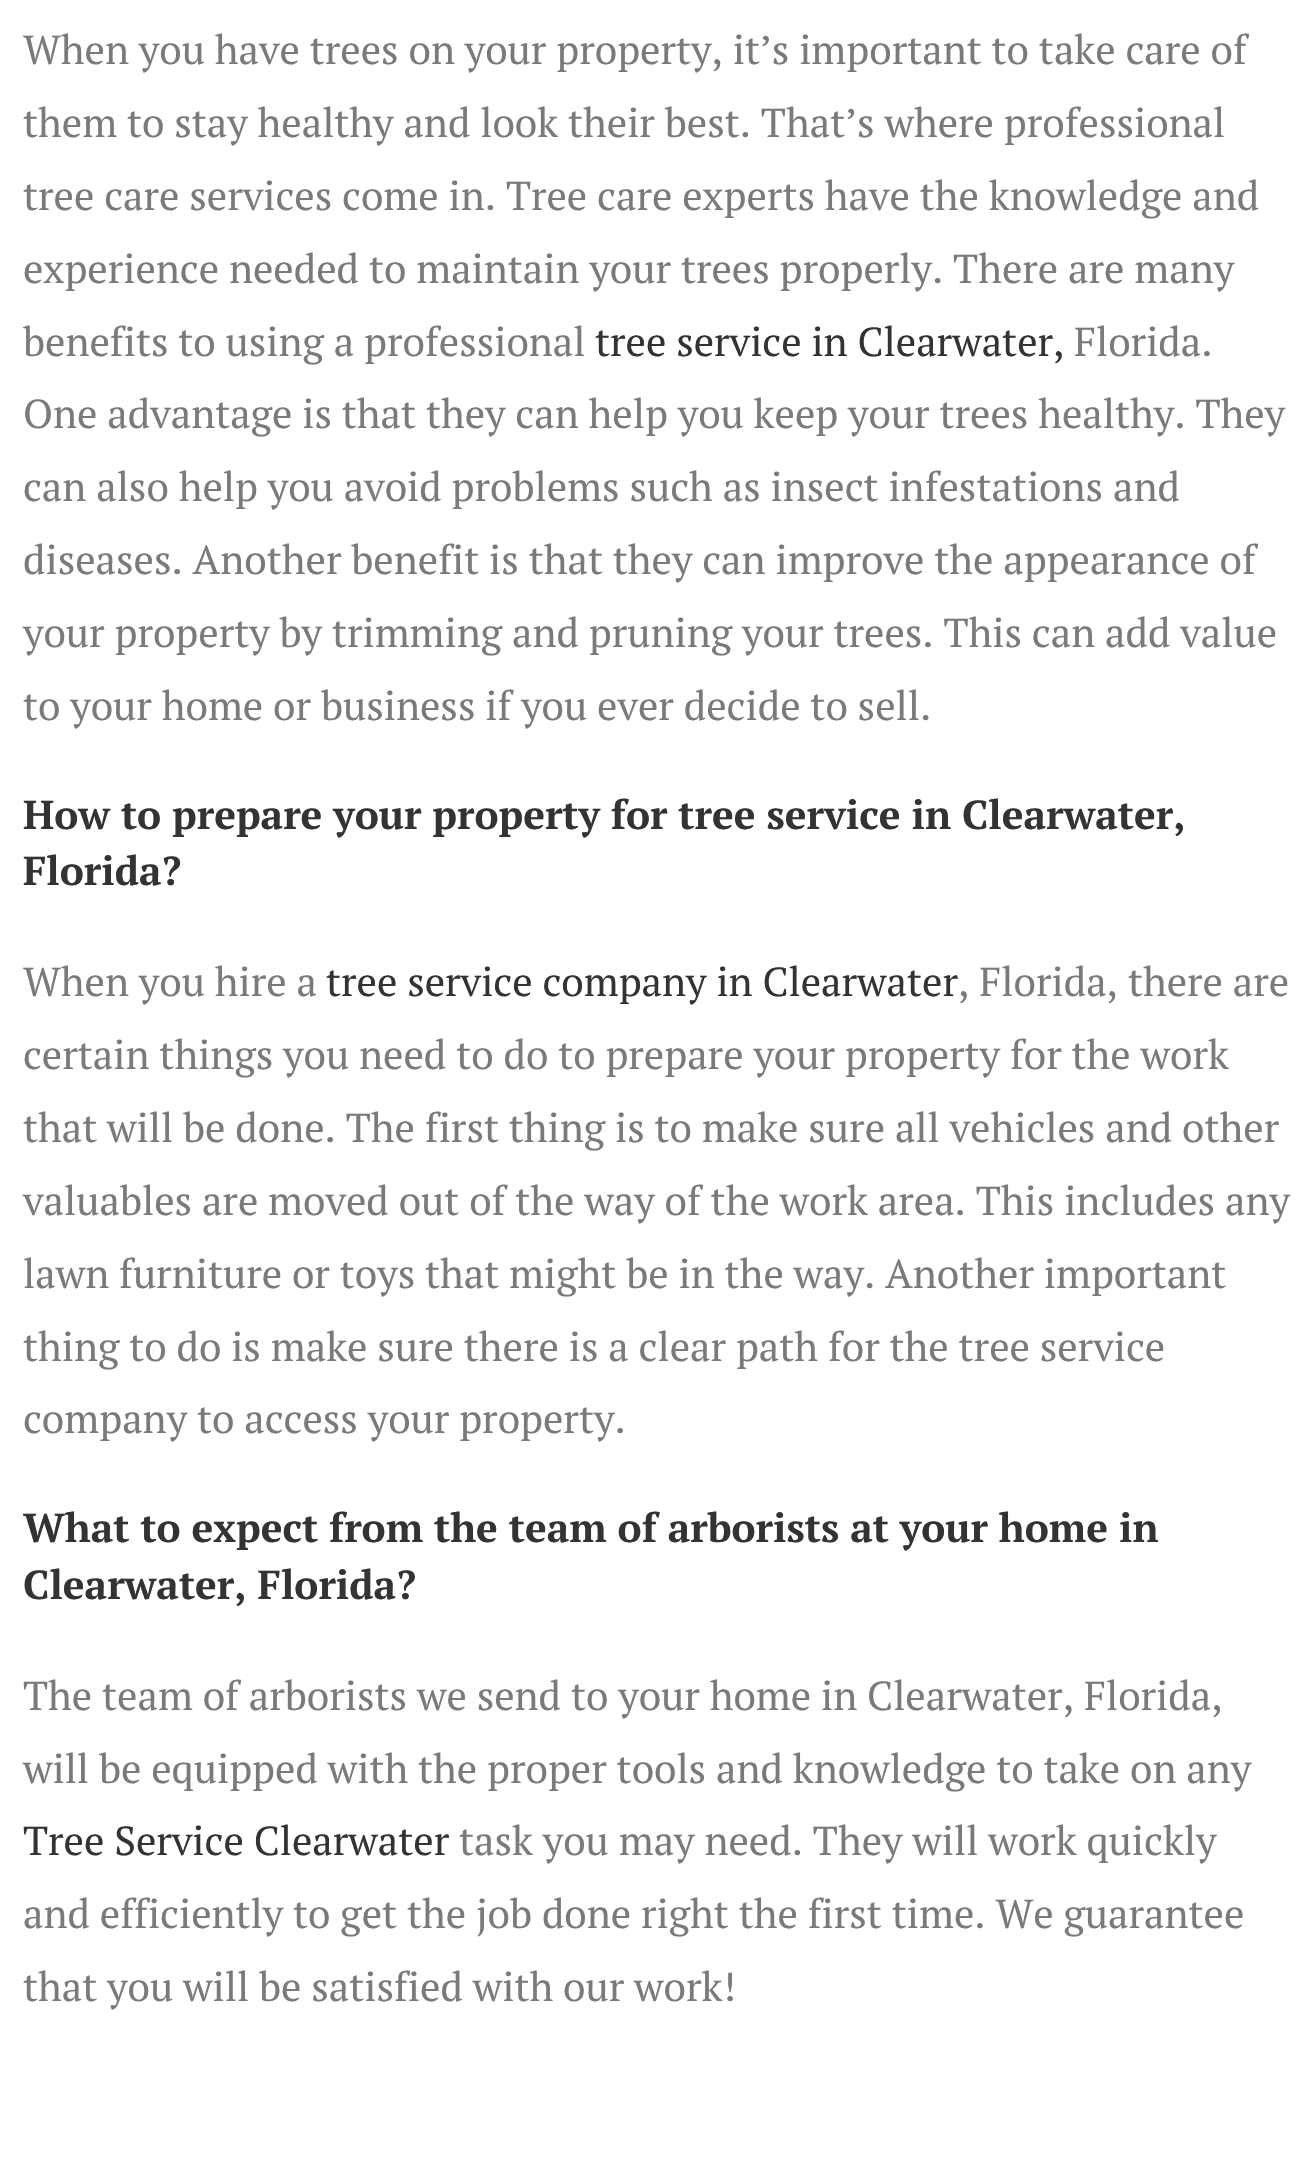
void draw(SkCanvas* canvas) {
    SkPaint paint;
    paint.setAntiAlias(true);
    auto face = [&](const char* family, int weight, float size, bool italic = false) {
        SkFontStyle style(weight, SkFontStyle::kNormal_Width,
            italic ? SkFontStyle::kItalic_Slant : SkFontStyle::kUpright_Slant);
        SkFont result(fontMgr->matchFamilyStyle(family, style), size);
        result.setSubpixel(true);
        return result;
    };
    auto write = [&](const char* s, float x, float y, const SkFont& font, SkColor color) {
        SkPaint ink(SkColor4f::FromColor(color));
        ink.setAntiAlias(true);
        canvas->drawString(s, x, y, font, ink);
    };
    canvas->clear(SK_ColorWHITE);
    auto kFont1 = face("PT Serif", 400, 40.5f);
    write("When you have trees on your property, it’s important to take care of", 23, 64, kFont1, SkColorSetRGB(122, 122, 122));
    write("them to stay healthy and look their best. That’s where professional", 23, 137, kFont1, SkColorSetRGB(122, 122, 122));
    write("tree care services come in. Tree care experts have the knowledge and", 23, 210, kFont1, SkColorSetRGB(122, 122, 122));
    write("experience needed to maintain your trees properly. There are many", 23, 283, kFont1, SkColorSetRGB(122, 122, 122));
    write("benefits to using a professional", 23, 356, kFont1, SkColorSetRGB(122, 122, 122));
    write("tree service in Clearwater,", 595, 356, kFont1, SkColorSetRGB(51, 51, 51));
    write("Florida.", 1074, 356, kFont1, SkColorSetRGB(122, 122, 122));
    write("One advantage is that they can help you keep your trees healthy. They", 23, 428, kFont1, SkColorSetRGB(122, 122, 122));
    write("can also help you avoid problems such as insect infestations and", 23, 501, kFont1, SkColorSetRGB(122, 122, 122));
    write("diseases. Another benefit is that they can improve the appearance of", 23, 574, kFont1, SkColorSetRGB(122, 122, 122));
    write("your property by trimming and pruning your trees. This can add value", 23, 647, kFont1, SkColorSetRGB(122, 122, 122));
    write("to your home or business if you ever decide to sell.", 23, 720, kFont1, SkColorSetRGB(122, 122, 122));
    auto kFont2 = face("PT Serif", 700, 40.5f);
    write("How to prepare your property for tree service in Clearwater,", 23, 829, kFont2, SkColorSetRGB(51, 51, 51));
    write("Florida?", 23, 885, kFont2, SkColorSetRGB(51, 51, 51));
    write("When you hire a", 23, 996, kFont1, SkColorSetRGB(122, 122, 122));
    write("tree service company in Clearwater", 326, 996, kFont1, SkColorSetRGB(51, 51, 51));
    write(", Florida, there are", 958, 996, kFont1, SkColorSetRGB(122, 122, 122));
    write("certain things you need to do to prepare your property for the work", 23, 1069, kFont1, SkColorSetRGB(122, 122, 122));
    write("that will be done. The first thing is to make sure all vehicles and other", 23, 1142, kFont1, SkColorSetRGB(122, 122, 122));
    write("valuables are moved out of the way of the work area. This includes any", 23, 1215, kFont1, SkColorSetRGB(122, 122, 122));
    write("lawn furniture or toys that might be in the way. Another important", 23, 1288, kFont1, SkColorSetRGB(122, 122, 122));
    write("thing to do is make sure there is a clear path for the tree service", 23, 1361, kFont1, SkColorSetRGB(122, 122, 122));
    write("company to access your property.", 23, 1433, kFont1, SkColorSetRGB(122, 122, 122));
    write("What to expect from the team of arborists at your home in", 23, 1542, kFont2, SkColorSetRGB(51, 51, 51));
    write("Clearwater, Florida?", 23, 1599, kFont2, SkColorSetRGB(51, 51, 51));
    write("The team of arborists we send to your home in Clearwater, Florida,", 23, 1710, kFont1, SkColorSetRGB(122, 122, 122));
    write("will be equipped with the proper tools and knowledge to take on any", 23, 1783, kFont1, SkColorSetRGB(122, 122, 122));
    write("Tree Service Clearwater", 23, 1855, kFont1, SkColorSetRGB(51, 51, 51));
    write("task you may need. They will work quickly", 459, 1855, kFont1, SkColorSetRGB(122, 122, 122));
    write("and efficiently to get the job done right the first time. We guarantee", 23, 1928, kFont1, SkColorSetRGB(122, 122, 122));
    write("that you will be satisfied with our work!", 23, 2001, kFont1, SkColorSetRGB(122, 122, 122));
}
